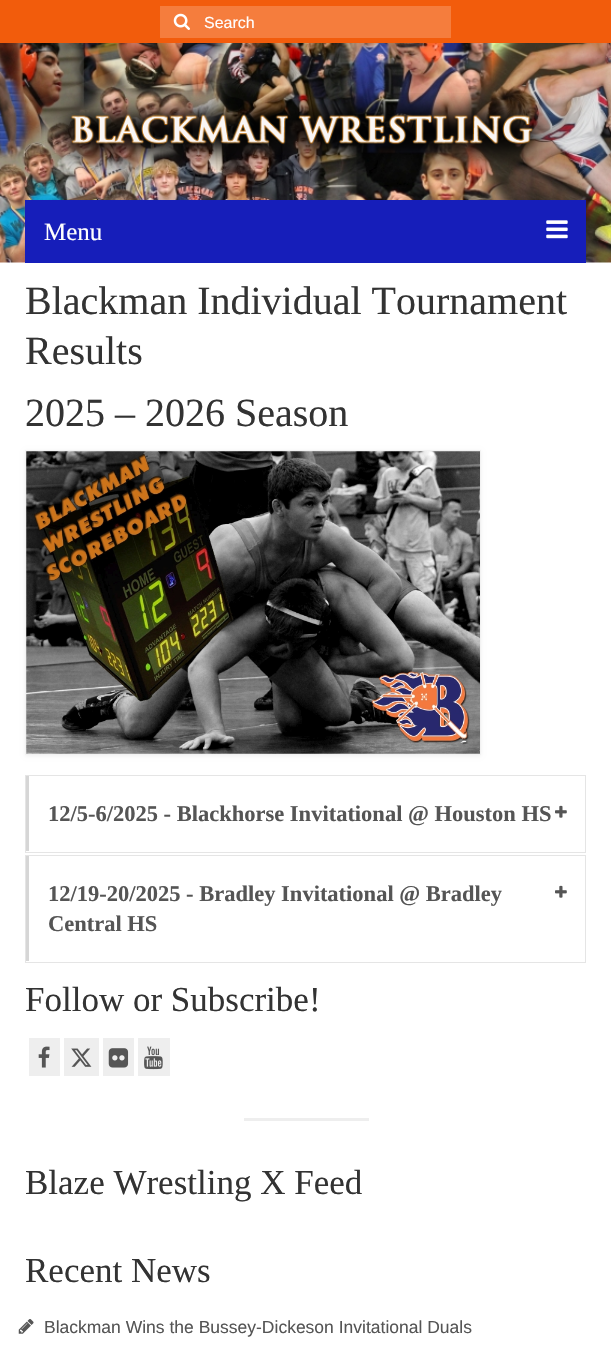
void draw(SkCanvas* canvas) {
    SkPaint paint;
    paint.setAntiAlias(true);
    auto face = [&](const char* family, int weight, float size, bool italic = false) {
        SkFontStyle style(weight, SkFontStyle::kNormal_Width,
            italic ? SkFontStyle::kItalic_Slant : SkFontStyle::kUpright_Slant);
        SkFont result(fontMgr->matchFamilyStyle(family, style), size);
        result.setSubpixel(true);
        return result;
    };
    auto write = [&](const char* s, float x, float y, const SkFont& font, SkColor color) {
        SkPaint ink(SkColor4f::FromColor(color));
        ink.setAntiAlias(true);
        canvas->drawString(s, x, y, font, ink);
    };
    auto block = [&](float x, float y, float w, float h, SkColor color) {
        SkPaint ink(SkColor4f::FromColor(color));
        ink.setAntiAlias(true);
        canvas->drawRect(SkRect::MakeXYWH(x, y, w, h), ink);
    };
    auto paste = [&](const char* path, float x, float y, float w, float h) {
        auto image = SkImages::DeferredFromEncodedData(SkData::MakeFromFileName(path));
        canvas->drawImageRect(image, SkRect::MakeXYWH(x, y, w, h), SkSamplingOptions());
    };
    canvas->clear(SK_ColorWHITE);
    paste("pic1.png", 0, 43, 611, 220);
    block(0, 0, 611, 43, SkColorSetRGB(242, 92, 12));
    block(160, 6, 291, 32, SkColorSetRGB(245, 125, 61));
    paste("pic2.png", 173, 13, 17, 17);
    auto kFont1 = face("Liberation Sans", 400, 16);
    write("Search", 204, 28, kFont1, SK_ColorWHITE);
    paste("pic3.png", 45, 93, 508, 77);
    block(25, 200, 561, 63, SkColorSetRGB(22, 30, 186));
    auto kFont2 = face("Liberation Serif", 400, 25);
    write("Menu", 44, 240, kFont2, SK_ColorWHITE);
    paste("pic4.png", 546, 220, 22, 19);
    auto kFont3 = face("Liberation Serif", 400, 40);
    write("Blackman Individual Tournament", 25, 314, kFont3, SkColorSetRGB(51, 51, 51));
    write("Results", 25, 364, kFont3, SkColorSetRGB(51, 51, 51));
    write("2025 – 2026 Season", 25, 426, kFont3, SkColorSetRGB(51, 51, 51));
    paint.setColor(SkColorSetARGB(15, 0, 0, 0));
    paint.setMaskFilter(SkMaskFilter::MakeBlur(kNormal_SkBlurStyle, 2));
    canvas->drawRect(SkRect::MakeXYWH(25, 451, 456, 305), paint);
    paint.setMaskFilter(nullptr);
    paint.setStyle(SkPaint::kStroke_Style);
    paint.setStrokeWidth(1);
    paint.setColor(SkColorSetRGB(242, 242, 242));
    canvas->drawRect(SkRect::MakeXYWH(25.5f, 450.5f, 455, 304), paint);
    paste("pic5.png", 26, 451, 454, 303);
    paint.setColor(SkColorSetRGB(229, 229, 229));
    canvas->drawRect(SkRect::MakeXYWH(25.5f, 775.5f, 560, 77), paint);
    block(26, 776, 3, 75, SkColorSetRGB(214, 214, 214));
    auto kFont4 = face("Liberation Serif", 700, 22.5f);
    write("12/5-6/2025 - Blackhorse Invitational @ Houston HS", 48, 821, kFont4, SkColorSetRGB(85, 85, 85));
    paste("pic6.png", 555, 805, 12, 13);
    canvas->drawRect(SkRect::MakeXYWH(25.5f, 855.5f, 560, 107), paint);
    block(26, 856, 3, 105, SkColorSetRGB(214, 214, 214));
    write("12/19-20/2025 - Bradley Invitational @ Bradley", 48, 901, kFont4, SkColorSetRGB(85, 85, 85));
    paste("pic6.png", 555, 885, 12, 13);
    write("Central HS", 48, 931, kFont4, SkColorSetRGB(85, 85, 85));
    auto kFont5 = face("Liberation Serif", 400, 35);
    write("Follow or Subscribe!", 25, 1011, kFont5, SkColorSetRGB(51, 51, 51));
    block(29, 1038, 31, 38, SkColorSetRGB(238, 238, 238));
    paste("pic7.png", 38, 1046, 12, 22);
    block(64, 1038, 35, 38, SkColorSetRGB(238, 238, 238));
    paste("pic8.png", 71, 1048, 21, 19);
    block(103, 1038, 31, 38, SkColorSetRGB(238, 238, 238));
    paste("pic9.png", 108, 1048, 21, 20);
    block(138, 1038, 32, 38, SkColorSetRGB(238, 238, 238));
    paste("pic10.png", 144, 1046, 19, 24);
    block(244, 1118, 125, 3, SkColorSetRGB(238, 238, 238));
    write("Blaze Wrestling X Feed", 25, 1194, kFont5, SkColorSetRGB(51, 51, 51));
    write("Recent News", 25, 1282, kFont5, SkColorSetRGB(51, 51, 51));
    paste("pic11.png", 18, 1319, 16, 15);
    auto kFont6 = face("Liberation Sans", 400, 17.5f);
    write("Blackman Wins the Bussey-Dickeson Invitational Duals", 44, 1333, kFont6, SkColorSetRGB(85, 85, 85));
}
